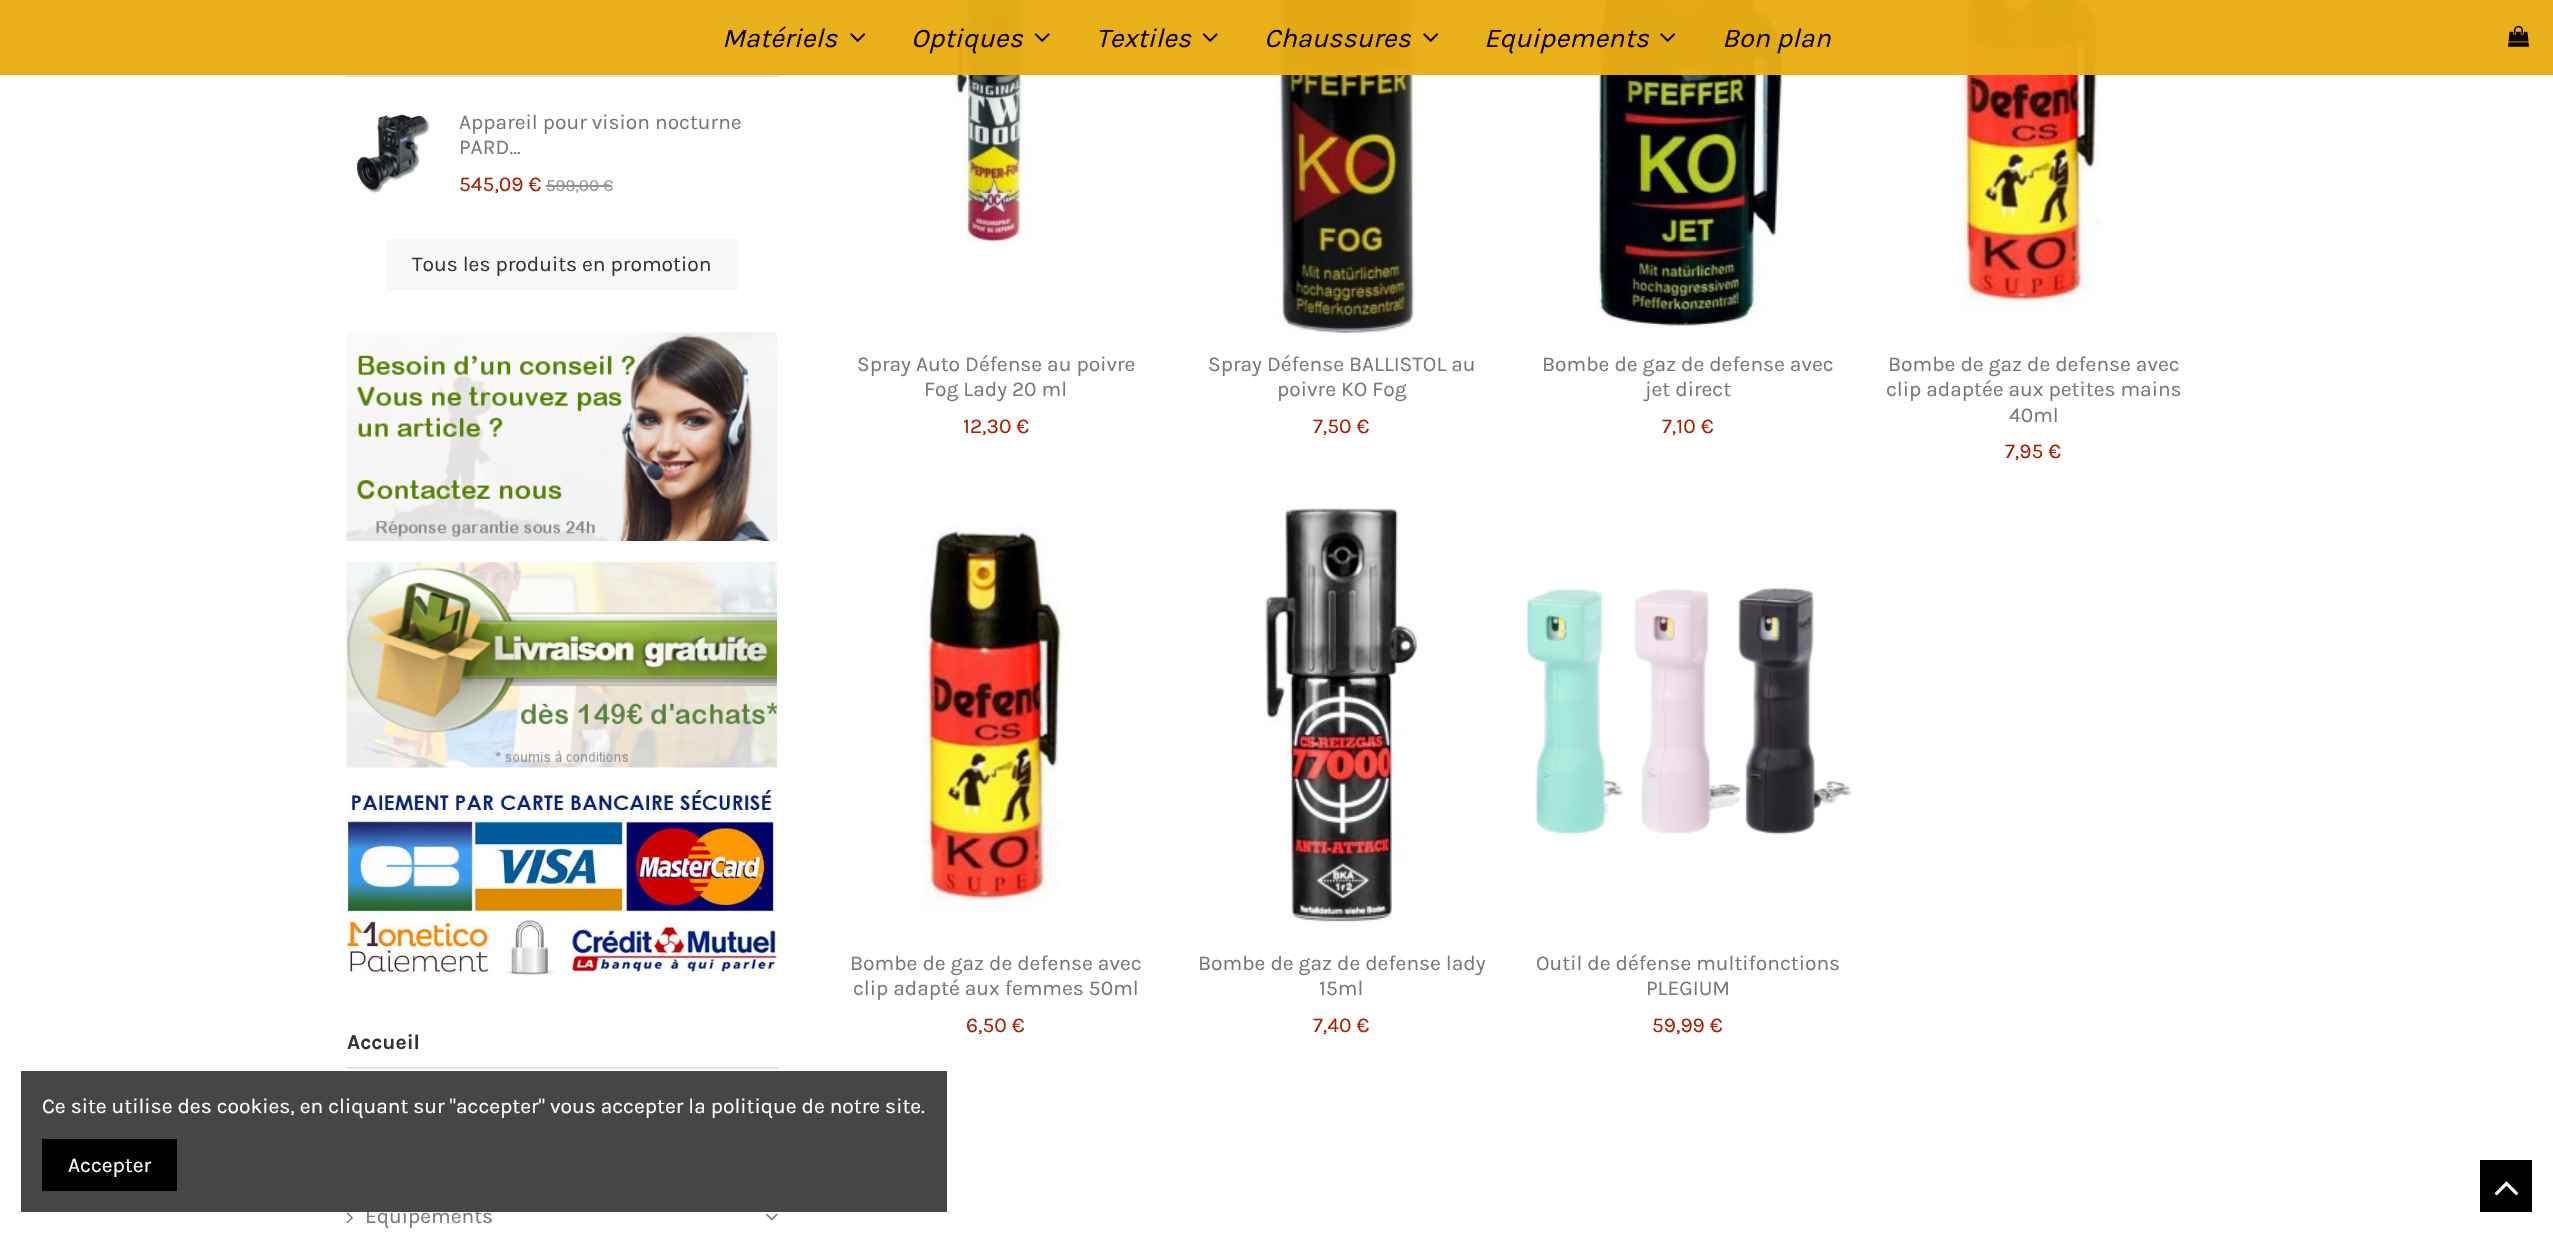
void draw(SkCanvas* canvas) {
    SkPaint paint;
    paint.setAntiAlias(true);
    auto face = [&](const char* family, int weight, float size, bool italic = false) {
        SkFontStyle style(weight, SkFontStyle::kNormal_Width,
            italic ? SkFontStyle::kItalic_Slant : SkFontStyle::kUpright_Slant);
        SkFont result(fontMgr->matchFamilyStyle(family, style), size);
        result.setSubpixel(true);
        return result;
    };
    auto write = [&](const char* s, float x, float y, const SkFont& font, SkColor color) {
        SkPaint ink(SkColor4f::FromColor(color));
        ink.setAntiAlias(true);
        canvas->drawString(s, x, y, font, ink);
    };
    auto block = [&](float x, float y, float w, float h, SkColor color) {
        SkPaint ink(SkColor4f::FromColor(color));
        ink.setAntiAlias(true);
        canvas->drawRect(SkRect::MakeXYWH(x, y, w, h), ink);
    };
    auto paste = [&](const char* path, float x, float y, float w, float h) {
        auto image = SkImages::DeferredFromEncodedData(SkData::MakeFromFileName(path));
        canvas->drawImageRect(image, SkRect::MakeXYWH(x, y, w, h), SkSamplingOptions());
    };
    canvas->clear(SK_ColorWHITE);
    paste("pic11.png", 952, 0, 82, 243);
    paste("pic12.png", 1274, 0, 150, 337);
    paste("pic13.png", 1590, 0, 194, 328);
    paste("pic14.png", 1953, 0, 152, 313);
    block(0, 0, 2553, 75, SkColorSetARGB(247, 232, 173, 21));
    auto kFont1 = face("Karla", 400, 27, true);
    write("Matériels", 722, 47, kFont1, SkColorSetRGB(15, 2, 2));
    paste("pic1.png", 850, 33, 16, 9);
    write("Optiques", 911, 47, kFont1, SkColorSetRGB(15, 2, 2));
    paste("pic2.png", 1034, 33, 16, 9);
    write("Textiles", 1096, 47, kFont1, SkColorSetRGB(15, 2, 2));
    paste("pic2.png", 1202, 33, 16, 9);
    write("Chaussures", 1264, 47, kFont1, SkColorSetRGB(15, 2, 2));
    paste("pic1.png", 1423, 33, 16, 9);
    write("Equipements", 1484, 47, kFont1, SkColorSetRGB(15, 2, 2));
    paste("pic3.png", 1660, 33, 16, 9);
    write("Bon plan", 1722, 47, kFont1, SkColorSetRGB(15, 2, 2));
    paste("pic4.png", 2508, 25, 21, 22);
    block(347, 75, 432, 2, SkColorSetRGB(227, 227, 227));
    paste("pic5.png", 356, 114, 74, 79);
    auto kFont2 = face("Karla", 400, 21);
    write("Appareil pour vision nocturne", 459, 129, kFont2, SkColorSetRGB(119, 119, 119));
    write("PARD...", 459, 154, kFont2, SkColorSetRGB(119, 119, 119));
    write("545,09 €", 459, 191, kFont2, SkColorSetRGB(173, 31, 0));
    auto kFont3 = face("Karla", 400, 17);
    write("599,00 €", 546, 191, kFont3, SkColorSetRGB(146, 146, 146));
    block(546, 185, 66, 2, SkColorSetRGB(146, 146, 146));
    block(386, 239, 352, 52, SkColorSetRGB(248, 248, 248));
    write("Tous les produits en promotion", 412, 271, kFont2, SkColorSetRGB(51, 51, 51));
    paste("pic6.png", 346, 332, 431, 209);
    paste("pic7.png", 346, 562, 431, 206);
    paste("pic8.png", 346, 788, 431, 187);
    block(347, 1067, 432, 2, SkColorSetRGB(227, 227, 227));
    auto kFont4 = face("Karla", 700, 21);
    write("Accueil", 347, 1049, kFont4, SkColorSetRGB(51, 51, 51));
    paste("pic9.png", 346, 1212, 7, 12);
    write("Equipements", 365, 1223, kFont2, SkColorSetRGB(119, 119, 119));
    paste("pic10.png", 766, 1213, 12, 8);
    write("Spray Auto Défense au poivre", 857, 371, kFont2, SkColorSetRGB(119, 119, 119));
    write("Fog Lady 20 ml", 924, 396, kFont2, SkColorSetRGB(119, 119, 119));
    write("12,30 €", 963, 433, kFont2, SkColorSetRGB(173, 31, 0));
    write("Spray Défense BALLISTOL au", 1208, 371, kFont2, SkColorSetRGB(119, 119, 119));
    write("poivre KO Fog", 1277, 396, kFont2, SkColorSetRGB(119, 119, 119));
    write("7,50 €", 1313, 433, kFont2, SkColorSetRGB(173, 31, 0));
    write("Bombe de gaz de defense avec", 1542, 371, kFont2, SkColorSetRGB(119, 119, 119));
    write("jet direct", 1645, 396, kFont2, SkColorSetRGB(119, 119, 119));
    write("7,10 €", 1662, 433, kFont2, SkColorSetRGB(173, 31, 0));
    write("Bombe de gaz de defense avec", 1888, 371, kFont2, SkColorSetRGB(119, 119, 119));
    write("clip adaptée aux petites mains", 1886, 396, kFont2, SkColorSetRGB(119, 119, 119));
    write("40ml", 2009, 422, kFont2, SkColorSetRGB(119, 119, 119));
    write("7,95 €", 2005, 458, kFont2, SkColorSetRGB(173, 31, 0));
    paste("pic15.png", 916, 525, 151, 387);
    write("Bombe de gaz de defense avec", 850, 970, kFont2, SkColorSetRGB(119, 119, 119));
    write("clip adapté aux femmes 50ml", 853, 995, kFont2, SkColorSetRGB(119, 119, 119));
    write("6,50 €", 966, 1032, kFont2, SkColorSetRGB(173, 31, 0));
    paste("pic16.png", 1263, 505, 155, 418);
    write("Bombe de gaz de defense lady", 1198, 970, kFont2, SkColorSetRGB(119, 119, 119));
    write("15ml", 1319, 995, kFont2, SkColorSetRGB(119, 119, 119));
    write("7,40 €", 1313, 1032, kFont2, SkColorSetRGB(173, 31, 0));
    paste("pic17.png", 1526, 588, 326, 247);
    write("Outil de défense multifonctions", 1536, 970, kFont2, SkColorSetRGB(119, 119, 119));
    write("PLEGIUM", 1646, 995, kFont2, SkColorSetRGB(119, 119, 119));
    write("59,99 €", 1652, 1032, kFont2, SkColorSetRGB(173, 31, 0));
    block(21, 1071, 926, 141, SkColorSetRGB(70, 70, 70));
    write("Ce site utilise des cookies, en cliquant sur \"accepter\" vous accepter la politique de notre site.", 42, 1113, kFont2, SK_ColorWHITE);
    block(42, 1139, 135, 52, SK_ColorBLACK);
    write("Accepter", 68, 1172, kFont2, SK_ColorWHITE);
    block(2480, 1160, 52, 52, SK_ColorBLACK);
    paste("pic18.png", 2494, 1181, 25, 15);
}
